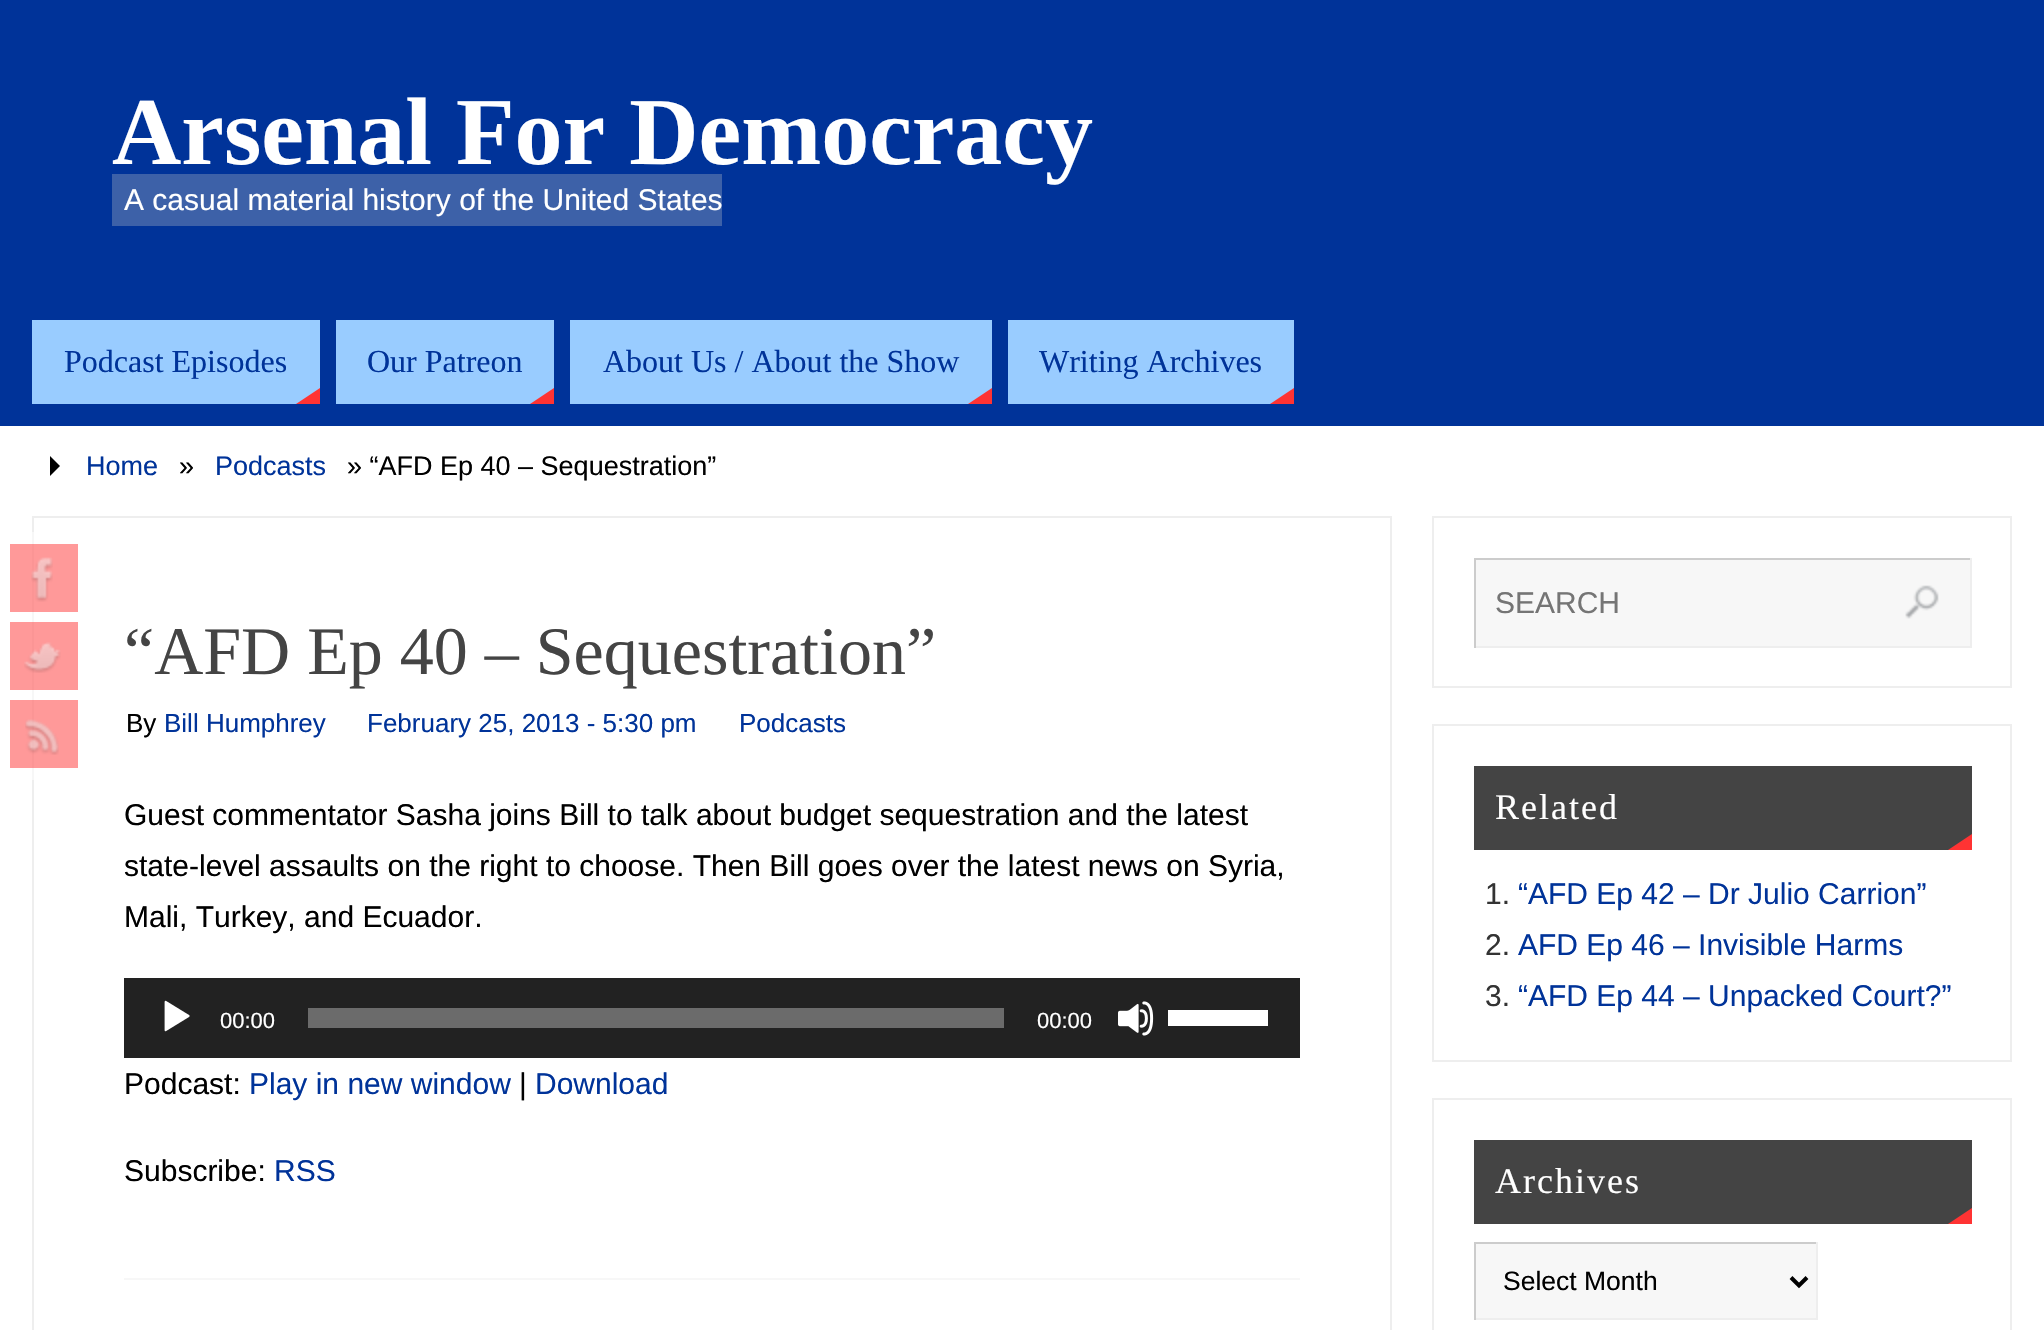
void draw(SkCanvas* canvas) {
    SkPaint paint;
    paint.setAntiAlias(true);
    auto face = [&](const char* family, int weight, float size, bool italic = false) {
        SkFontStyle style(weight, SkFontStyle::kNormal_Width,
            italic ? SkFontStyle::kItalic_Slant : SkFontStyle::kUpright_Slant);
        SkFont result(fontMgr->matchFamilyStyle(family, style), size);
        result.setSubpixel(true);
        return result;
    };
    auto write = [&](const char* s, float x, float y, const SkFont& font, SkColor color) {
        SkPaint ink(SkColor4f::FromColor(color));
        ink.setAntiAlias(true);
        canvas->drawString(s, x, y, font, ink);
    };
    auto writeSpaced = [&](const char* s, float x, float y, const SkFont& font, const SkPaint& ink, float letter, float word) {
        std::vector<SkGlyphID> glyphs(font.countText(s, strlen(s), SkTextEncoding::kUTF8));
        std::vector<float> xs(glyphs.size());
        font.textToGlyphs(s, strlen(s), SkTextEncoding::kUTF8, glyphs);
        font.getXPos(glyphs, xs, x);
        float extra = 0;
        for (size_t i = 0; i < glyphs.size(); i++) {
            xs[i] += extra;
            extra += letter + word * (glyphs[i] == font.unicharToGlyph(' '));
        }
        canvas->drawTextBlob(SkTextBlob::MakeFromPosHGlyphs(glyphs, xs, y, font), 0, 0, ink);
    };
    auto block = [&](float x, float y, float w, float h, SkColor color) {
        SkPaint ink(SkColor4f::FromColor(color));
        ink.setAntiAlias(true);
        canvas->drawRect(SkRect::MakeXYWH(x, y, w, h), ink);
    };
    auto paste = [&](const char* path, float x, float y, float w, float h) {
        auto image = SkImages::DeferredFromEncodedData(SkData::MakeFromFileName(path));
        canvas->drawImageRect(image, SkRect::MakeXYWH(x, y, w, h), SkSamplingOptions());
    };
    canvas->clear(SK_ColorWHITE);
    block(0, 0, 2044, 426, SkColorSetRGB(0, 51, 153));
    auto kFont1 = face("Liberation Serif", 700, 96);
    write("Arsenal For Democracy", 112, 164, kFont1, SK_ColorWHITE);
    block(112, 174, 610, 52, SkColorSetRGB(61, 97, 168));
    auto kFont2 = face("Liberation Sans", 400, 30);
    write("A casual material history of the United States", 124, 210, kFont2, SK_ColorWHITE);
    block(32, 320, 288, 84, SkColorSetRGB(153, 204, 255));
    auto kFont3 = face("Liberation Serif", 400, 32);
    write("Podcast Episodes", 64, 372, kFont3, SkColorSetRGB(0, 51, 153));
    paint.setColor(SkColorSetRGB(255, 51, 51));
    canvas->drawPath(SkPathBuilder().moveTo(320, 404).lineTo(296, 404).lineTo(320, 388).close().detach(), paint);
    block(336, 320, 218, 84, SkColorSetRGB(153, 204, 255));
    write("Our Patreon", 367, 372, kFont3, SkColorSetRGB(0, 51, 153));
    canvas->drawPath(SkPathBuilder().moveTo(554, 404).lineTo(530, 404).lineTo(554, 388).close().detach(), paint);
    block(570, 320, 422, 84, SkColorSetRGB(153, 204, 255));
    write("About Us / About the Show", 603, 372, kFont3, SkColorSetRGB(0, 51, 153));
    canvas->drawPath(SkPathBuilder().moveTo(992, 404).lineTo(968, 404).lineTo(992, 388).close().detach(), paint);
    block(1008, 320, 286, 84, SkColorSetRGB(153, 204, 255));
    write("Writing Archives", 1039, 372, kFont3, SkColorSetRGB(0, 51, 153));
    canvas->drawPath(SkPathBuilder().moveTo(1294, 404).lineTo(1270, 404).lineTo(1294, 388).close().detach(), paint);
    paint.setStyle(SkPaint::kStroke_Style);
    paint.setStrokeWidth(2);
    paint.setColor(SkColorSetRGB(238, 238, 238));
    canvas->drawRect(SkRect::MakeXYWH(33, 517, 1358, 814), paint);
    block(32, 532, 2, 248, SkColorSetARGB(128, 255, 255, 255));
    block(10, 544, 68, 68, SkColorSetARGB(128, 255, 51, 51));
    paste("pic1.png", 31, 557, 22, 45);
    block(10, 622, 68, 68, SkColorSetARGB(128, 255, 51, 51));
    paste("pic2.png", 24, 642, 37, 31);
    block(10, 700, 68, 68, SkColorSetARGB(128, 255, 51, 51));
    paste("pic3.png", 25, 719, 34, 36);
    paint.setStyle(SkPaint::kFill_Style);
    paint.setColor(SK_ColorBLACK);
    canvas->drawPath(SkPathBuilder().moveTo(50, 476).lineTo(50, 456).lineTo(60, 466).close().detach(), paint);
    auto kFont4 = face("Liberation Sans", 400, 27);
    write("Home", 86, 475, kFont4, SkColorSetRGB(0, 51, 153));
    write("»", 179, 475, kFont4, SK_ColorBLACK);
    write("Podcasts", 215, 475, kFont4, SkColorSetRGB(0, 51, 153));
    write("» “AFD Ep 40 – Sequestration”", 347, 475, kFont4, SK_ColorBLACK);
    auto kFont5 = face("Liberation Serif", 400, 68);
    write("“AFD Ep 40 – Sequestration”", 124, 674, kFont5, SkColorSetRGB(68, 68, 68));
    auto kFont6 = face("Liberation Sans", 400, 26);
    write("By", 126, 732, kFont6, SK_ColorBLACK);
    write("Bill Humphrey", 164, 732, kFont6, SkColorSetRGB(0, 51, 153));
    write("February 25, 2013 - 5:30 pm", 367, 732, kFont6, SkColorSetRGB(0, 51, 153));
    write("Podcasts", 739, 732, kFont6, SkColorSetRGB(0, 51, 153));
    write("Guest commentator Sasha joins Bill to talk about budget sequestration and the latest", 124, 825, kFont2, SK_ColorBLACK);
    write("state-level assaults on the right to choose. Then Bill goes over the latest news on Syria,", 124, 876, kFont2, SK_ColorBLACK);
    write("Mali, Turkey, and Ecuador.", 124, 927, kFont2, SK_ColorBLACK);
    block(124, 978, 1176, 80, SkColorSetRGB(34, 34, 34));
    paste("pic4.png", 164, 1000, 26, 32);
    auto kFont7 = face("Liberation Sans", 400, 22);
    write("00:00", 220, 1028, kFont7, SK_ColorWHITE);
    block(308, 1008, 696, 20, SkColorSetRGB(107, 107, 107));
    write("00:00", 1037, 1028, kFont7, SK_ColorWHITE);
    paste("pic5.png", 1118, 1001, 36, 35);
    block(1168, 1010, 100, 16, SK_ColorWHITE);
    write("Podcast:", 124, 1094, kFont2, SK_ColorBLACK);
    write("Play in new window", 249, 1094, kFont2, SkColorSetRGB(0, 51, 153));
    write("|", 519, 1094, kFont2, SK_ColorBLACK);
    write("Download", 535, 1094, kFont2, SkColorSetRGB(0, 51, 153));
    write("Subscribe:", 124, 1181, kFont2, SK_ColorBLACK);
    write("RSS", 274, 1181, kFont2, SkColorSetRGB(0, 51, 153));
    block(124, 1278, 1176, 2, SkColorSetRGB(247, 247, 247));
    paint.setStyle(SkPaint::kStroke_Style);
    paint.setColor(SkColorSetRGB(238, 238, 238));
    canvas->drawRect(SkRect::MakeXYWH(1433, 517, 578, 170), paint);
    block(1476, 560, 494, 86, SkColorSetRGB(247, 247, 247));
    block(1474, 558, 498, 2, SkColorSetRGB(204, 204, 204));
    block(1970, 558, 2, 90, SkColorSetRGB(238, 238, 238));
    block(1474, 646, 498, 2, SkColorSetRGB(238, 238, 238));
    block(1474, 558, 2, 90, SkColorSetRGB(204, 204, 204));
    write("SEARCH", 1495, 613, kFont2, SkColorSetRGB(117, 117, 117));
    paste("pic6.png", 1905, 585, 34, 34);
    canvas->drawRect(SkRect::MakeXYWH(1433, 725, 578, 336), paint);
    block(1474, 766, 498, 84, SkColorSetRGB(68, 68, 68));
    auto kFont8 = face("Liberation Serif", 400, 36);
    paint.setStyle(SkPaint::kFill_Style);
    paint.setColor(SK_ColorWHITE);
    writeSpaced("Related", 1495, 819, kFont8, paint, 2, 0);
    paint.setColor(SkColorSetRGB(255, 51, 51));
    canvas->drawPath(SkPathBuilder().moveTo(1972, 850).lineTo(1948, 850).lineTo(1972, 834).close().detach(), paint);
    write("1.", 1485, 904, kFont2, SkColorSetRGB(51, 51, 51));
    write("“AFD Ep 42 – Dr Julio Carrion”", 1518, 904, kFont2, SkColorSetRGB(0, 51, 153));
    write("2.", 1485, 955, kFont2, SkColorSetRGB(51, 51, 51));
    write("AFD Ep 46 – Invisible Harms", 1518, 955, kFont2, SkColorSetRGB(0, 51, 153));
    write("3.", 1485, 1006, kFont2, SkColorSetRGB(51, 51, 51));
    write("“AFD Ep 44 – Unpacked Court?”", 1518, 1006, kFont2, SkColorSetRGB(0, 51, 153));
    paint.setStyle(SkPaint::kStroke_Style);
    paint.setColor(SkColorSetRGB(238, 238, 238));
    canvas->drawRect(SkRect::MakeXYWH(1433, 1099, 578, 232), paint);
    block(1474, 1140, 498, 84, SkColorSetRGB(68, 68, 68));
    paint.setStyle(SkPaint::kFill_Style);
    paint.setColor(SK_ColorWHITE);
    writeSpaced("Archives", 1495, 1193, kFont8, paint, 2, 0);
    paint.setColor(SkColorSetRGB(255, 51, 51));
    canvas->drawPath(SkPathBuilder().moveTo(1972, 1224).lineTo(1948, 1224).lineTo(1972, 1208).close().detach(), paint);
    block(1476, 1244, 340, 74, SkColorSetRGB(247, 247, 247));
    block(1474, 1242, 344, 2, SkColorSetRGB(204, 204, 204));
    block(1816, 1242, 2, 78, SkColorSetRGB(238, 238, 238));
    block(1474, 1318, 344, 2, SkColorSetRGB(238, 238, 238));
    block(1474, 1242, 2, 78, SkColorSetRGB(204, 204, 204));
    paint.setStyle(SkPaint::kStroke_Style);
    paint.setStrokeWidth(4);
    paint.setColor(SK_ColorBLACK);
    canvas->drawPath(SkPathBuilder().moveTo(1791, 1277.5f).lineTo(1799, 1285.5f).lineTo(1807, 1277.5f).detach(), paint);
    auto kFont9 = face("Liberation Sans", 400, 26.5f);
    write("Select Month", 1503, 1290, kFont9, SK_ColorBLACK);
}
